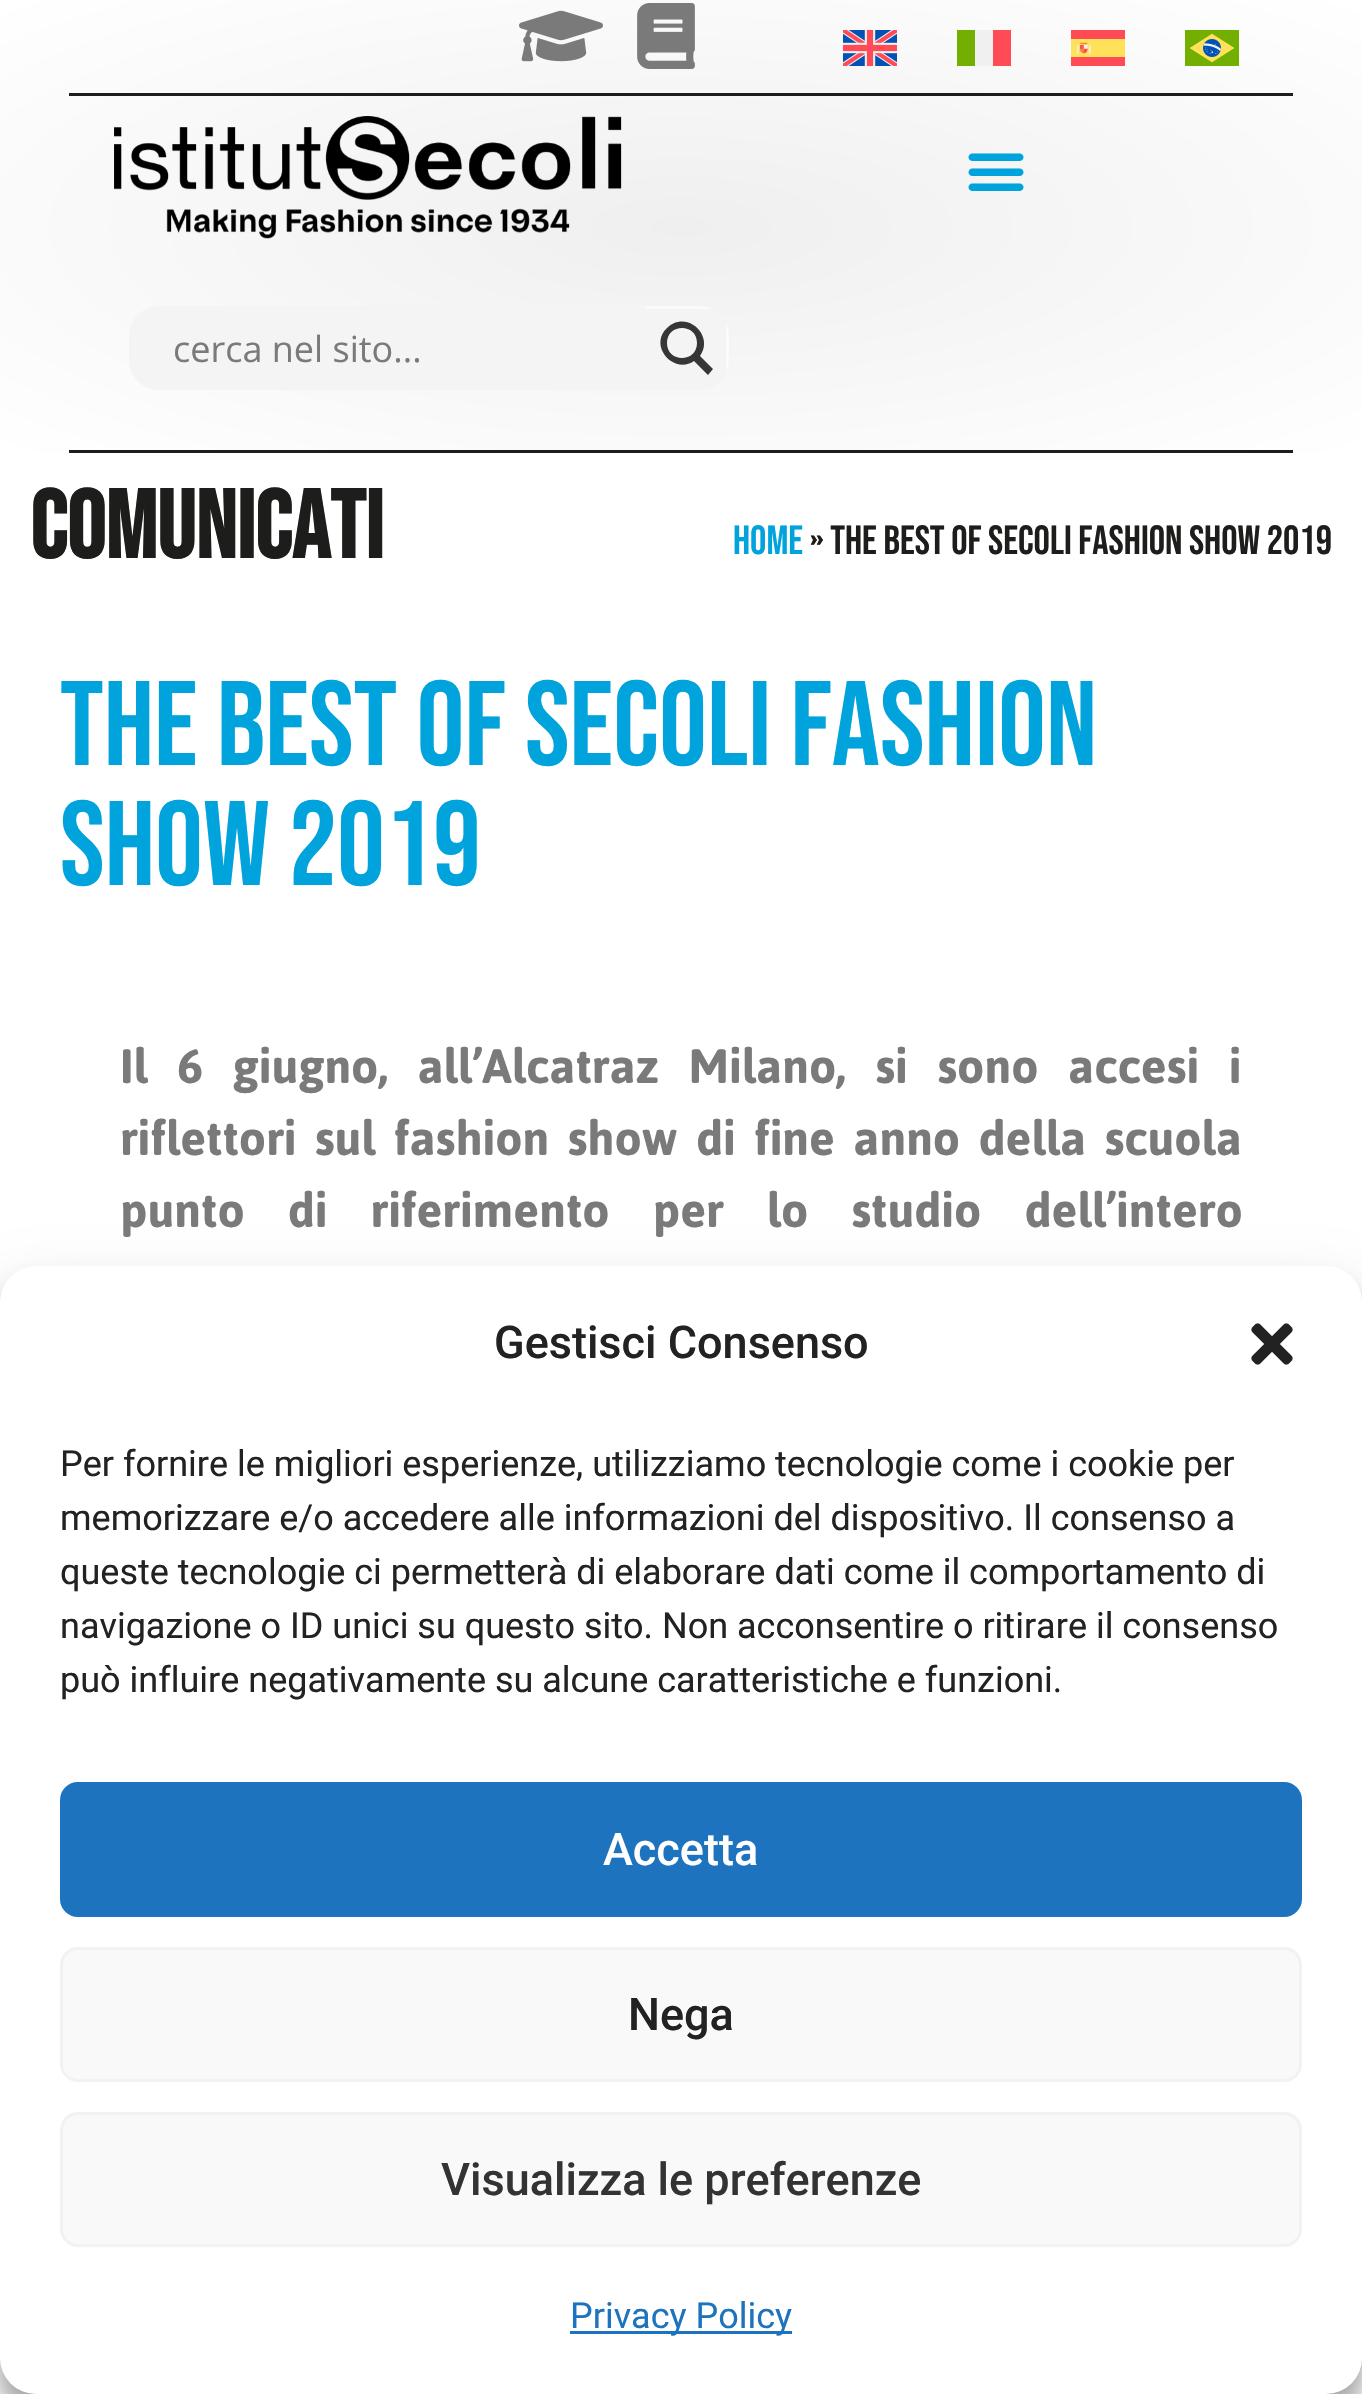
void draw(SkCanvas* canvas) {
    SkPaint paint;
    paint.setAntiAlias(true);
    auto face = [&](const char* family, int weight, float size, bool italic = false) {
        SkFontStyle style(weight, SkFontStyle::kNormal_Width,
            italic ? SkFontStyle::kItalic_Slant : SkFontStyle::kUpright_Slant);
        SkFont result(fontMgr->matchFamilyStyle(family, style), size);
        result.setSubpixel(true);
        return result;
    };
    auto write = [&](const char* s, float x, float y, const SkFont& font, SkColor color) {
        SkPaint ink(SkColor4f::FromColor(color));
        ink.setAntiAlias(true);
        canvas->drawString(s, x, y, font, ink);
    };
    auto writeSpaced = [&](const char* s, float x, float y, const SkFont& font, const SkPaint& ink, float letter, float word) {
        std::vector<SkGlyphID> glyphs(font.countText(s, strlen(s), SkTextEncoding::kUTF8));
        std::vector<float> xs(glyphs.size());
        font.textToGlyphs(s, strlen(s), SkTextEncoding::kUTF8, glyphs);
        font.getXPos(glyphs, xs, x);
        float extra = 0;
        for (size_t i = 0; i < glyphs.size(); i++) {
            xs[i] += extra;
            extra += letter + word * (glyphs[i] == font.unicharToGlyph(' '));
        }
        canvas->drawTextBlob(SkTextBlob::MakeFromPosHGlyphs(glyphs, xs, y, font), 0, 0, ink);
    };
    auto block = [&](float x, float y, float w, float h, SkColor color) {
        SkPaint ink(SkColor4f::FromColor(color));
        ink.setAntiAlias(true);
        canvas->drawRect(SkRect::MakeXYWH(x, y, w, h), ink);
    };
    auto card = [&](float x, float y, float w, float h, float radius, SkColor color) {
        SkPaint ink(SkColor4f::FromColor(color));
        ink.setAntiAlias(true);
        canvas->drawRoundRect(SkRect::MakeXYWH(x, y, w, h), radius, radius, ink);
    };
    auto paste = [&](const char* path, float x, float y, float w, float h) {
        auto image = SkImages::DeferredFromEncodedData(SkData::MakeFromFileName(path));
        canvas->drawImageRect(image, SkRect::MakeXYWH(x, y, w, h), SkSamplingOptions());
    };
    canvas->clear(SK_ColorWHITE);
    {
        const SkColor colors[] = {SkColorSetRGB(239, 239, 239), SK_ColorWHITE};
        const float stops[] = {0, 1};
        SkMatrix m = SkMatrix::Translate(681, 227).preScale(963, 320);
        paint.setShader(SkGradientShader::MakeRadial({0, 0}, 1, colors, stops, 2, SkTileMode::kClamp, 0, &m));
        paint.setAlpha(255);
    }
    canvas->drawRect(SkRect::MakeXYWH(0, 0, 1362, 453), paint);
    paste("pic1.png", 519, 10, 84, 52);
    paste("pic2.png", 637, 3, 58, 66);
    paste("pic3.png", 843, 30, 54, 36);
    block(957, 30, 18, 36, SkColorSetRGB(115, 175, 0));
    block(975, 30, 18, 36, SkColorSetRGB(240, 240, 240));
    block(993, 30, 18, 36, SkColorSetRGB(255, 75, 85));
    paste("pic4.png", 1071, 30, 54, 36);
    paste("pic5.png", 1185, 30, 54, 36);
    block(69, 93, 1224, 3, SkColorSetRGB(29, 29, 27));
    block(69, 450, 1224, 3, SkColorSetRGB(29, 29, 27));
    paste("pic6.png", 114, 116, 508, 123);
    paste("pic7.png", 968, 153, 56, 38);
    card(129, 306, 600, 84, 30, SkColorSetRGB(244, 244, 244));
    auto kFont1 = face("Open Sans", 400, 36);
    write("cerca nel sito...", 173, 362, kFont1, SkColorSetRGB(122, 122, 122));
    canvas->save();
    canvas->clipRect(SkRect::MakeXYWH(645, 306, 84, 84));
    paint.setShader(nullptr);
    paint.setColor(SkColorSetRGB(251, 251, 251));
    canvas->drawPath(SkPathBuilder(SkPathFillType::kEvenOdd).moveTo(642, 309).lineTo(642, 390).lineTo(348, 390).lineTo(348, 306).lineTo(699, 306).cubicTo(704, 306, 708, 307, 712, 309).close().moveTo(726, 373).cubicTo(730, 365, 729, 357, 729, 348).cubicTo(729, 339, 730, 331, 726, 323).close().detach(), paint);
    canvas->restore();
    paint.setColor(SkColorSetRGB(54, 54, 54));
    canvas->drawPath(SkPathBuilder().moveTo(713, 369).lineTo(700, 356).cubicTo(715, 335, 686, 309, 667, 328).cubicTo(648, 346, 674, 375, 694, 361).lineTo(708, 375).close().moveTo(667, 343).cubicTo(667, 323, 697, 323, 697, 343).cubicTo(697, 363, 667, 363, 667, 343).close().detach(), paint);
    auto kFont2 = face("Bebas Neue", 700, 96);
    write("Comunicati", 30, 558, kFont2, SkColorSetRGB(29, 29, 27));
    auto kFont3 = face("Bebas Neue", 400, 40.75f);
    write("Home", 733, 554, kFont3, SkColorSetRGB(0, 163, 220));
    write("» THE BEST OF SECOLI FASHION SHOW 2019", 810, 554, kFont3, SkColorSetRGB(29, 29, 27));
    auto kFont4 = face("Bebas Neue", 400, 120);
    write("THE BEST OF SECOLI FASHION", 60, 765, kFont4, SkColorSetRGB(0, 163, 220));
    write("SHOW 2019", 60, 885, kFont4, SkColorSetRGB(0, 163, 220));
    auto kFont5 = face("Asap", 700, 48);
    paint.setColor(SkColorSetRGB(122, 122, 122));
    writeSpaced("Il 6 giugno, all’Alcatraz Milano, si sono accesi i", 120, 1083, kFont5, paint, 0, 18);
    writeSpaced("riflettori sul fashion show di fine anno della scuola", 120, 1155, kFont5, paint, 0, 6.75f);
    writeSpaced("punto di riferimento per lo studio dell’intero", 120, 1227, kFont5, paint, 0, 31.5f);
    paint.setColor(SkColorSetARGB(59, 0, 0, 0));
    paint.setMaskFilter(SkMaskFilter::MakeBlur(kNormal_SkBlurStyle, 9));
    canvas->drawRoundRect(SkRect::MakeXYWH(0, 1284, 1362, 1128), 36, 36, paint);
    paint.setMaskFilter(nullptr);
    paint.setColor(SkColorSetARGB(48, 0, 0, 0));
    paint.setMaskFilter(SkMaskFilter::MakeBlur(kNormal_SkBlurStyle, 30));
    canvas->drawRoundRect(SkRect::MakeXYWH(0, 1296, 1362, 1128), 36, 36, paint);
    paint.setMaskFilter(nullptr);
    card(0, 1266, 1362, 1128, 36, SK_ColorWHITE);
    auto kFont6 = face("Roboto", 500, 45);
    write("Gestisci Consenso", 494, 1358, kFont6, SkColorSetRGB(34, 34, 34));
    paste("pic8.png", 1251, 1323, 42, 42);
    auto kFont7 = face("Roboto", 400, 36);
    write("Per fornire le migliori esperienze, utilizziamo tecnologie come i cookie per", 60, 1476, kFont7, SkColorSetRGB(34, 34, 34));
    write("memorizzare e/o accedere alle informazioni del dispositivo. Il consenso a", 60, 1530, kFont7, SkColorSetRGB(34, 34, 34));
    write("queste tecnologie ci permetterà di elaborare dati come il comportamento di", 60, 1584, kFont7, SkColorSetRGB(34, 34, 34));
    write("navigazione o ID unici su questo sito. Non acconsentire o ritirare il consenso", 60, 1638, kFont7, SkColorSetRGB(34, 34, 34));
    write("può influire negativamente su alcune caratteristiche e funzioni.", 60, 1692, kFont7, SkColorSetRGB(34, 34, 34));
    paint.setColor(SkColorSetRGB(30, 115, 190));
    canvas->drawRoundRect(SkRect::MakeXYWH(61.5f, 1783.5f, 1239, 132), 16.5f, 16.5f, paint);
    paint.setStyle(SkPaint::kStroke_Style);
    paint.setStrokeWidth(3);
    canvas->drawRoundRect(SkRect::MakeXYWH(61.5f, 1783.5f, 1239, 132), 16.5f, 16.5f, paint);
    write("Accetta", 603, 1865, kFont6, SK_ColorWHITE);
    paint.setStyle(SkPaint::kFill_Style);
    paint.setColor(SkColorSetRGB(249, 249, 249));
    canvas->drawRoundRect(SkRect::MakeXYWH(61.5f, 1948.5f, 1239, 132), 16.5f, 16.5f, paint);
    paint.setStyle(SkPaint::kStroke_Style);
    paint.setColor(SkColorSetRGB(242, 242, 242));
    canvas->drawRoundRect(SkRect::MakeXYWH(61.5f, 1948.5f, 1239, 132), 16.5f, 16.5f, paint);
    write("Nega", 628, 2030, kFont6, SkColorSetRGB(34, 34, 34));
    paint.setStyle(SkPaint::kFill_Style);
    paint.setColor(SkColorSetRGB(249, 249, 249));
    canvas->drawRoundRect(SkRect::MakeXYWH(61.5f, 2113.5f, 1239, 132), 16.5f, 16.5f, paint);
    paint.setStyle(SkPaint::kStroke_Style);
    paint.setColor(SkColorSetRGB(242, 242, 242));
    canvas->drawRoundRect(SkRect::MakeXYWH(61.5f, 2113.5f, 1239, 132), 16.5f, 16.5f, paint);
    write("Visualizza le preferenze", 441, 2195, kFont6, SkColorSetRGB(51, 51, 51));
    block(570, 2331, 222, 3, SkColorSetRGB(30, 115, 190));
    write("Privacy Policy", 570, 2328, kFont7, SkColorSetRGB(30, 115, 190));
}
